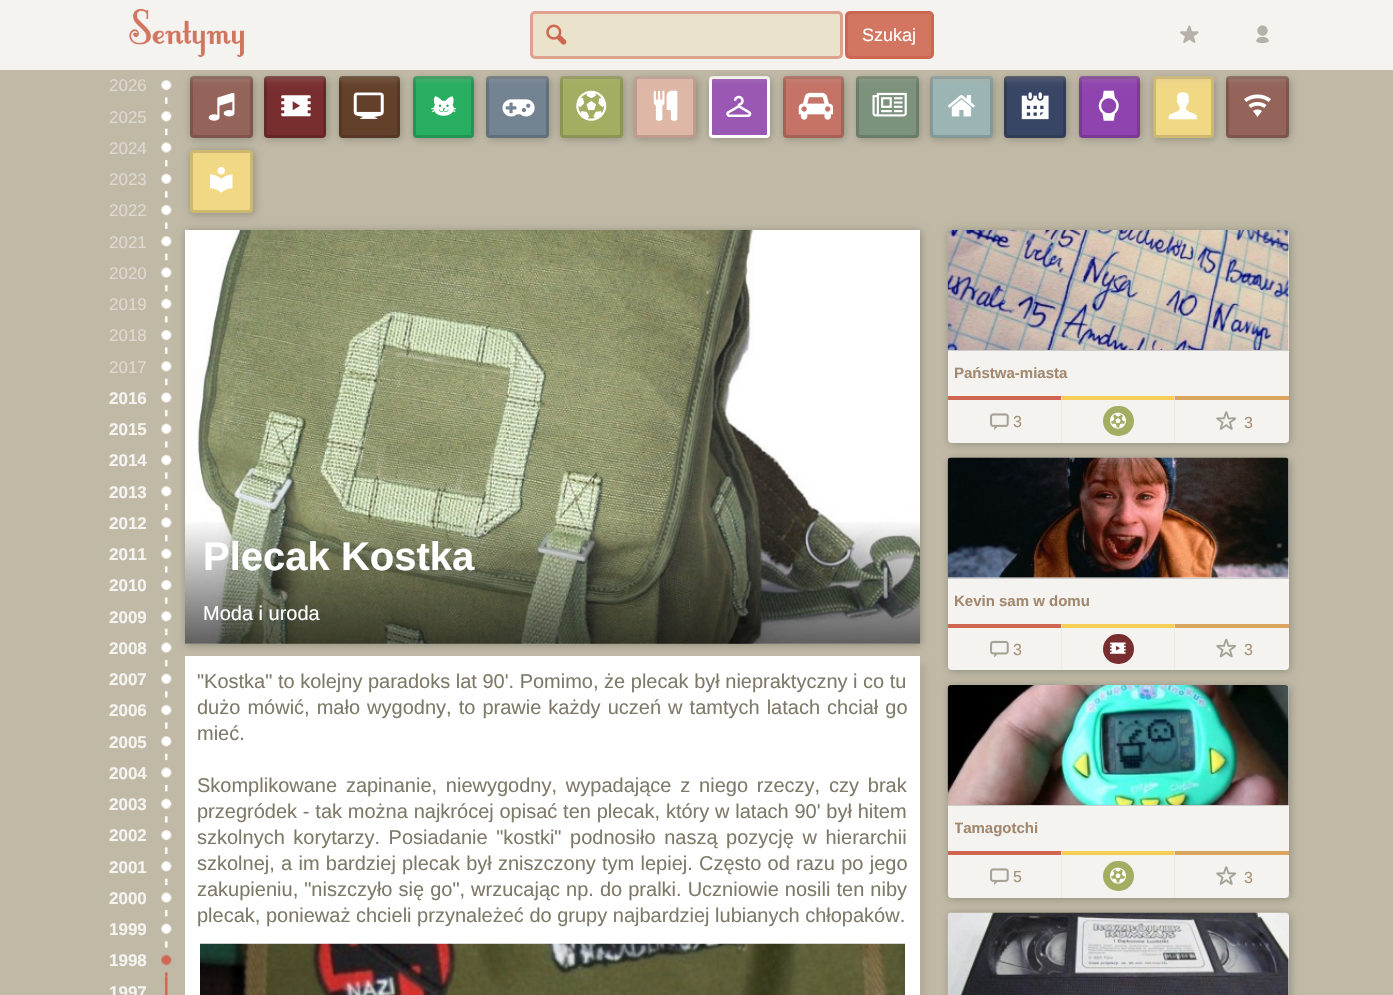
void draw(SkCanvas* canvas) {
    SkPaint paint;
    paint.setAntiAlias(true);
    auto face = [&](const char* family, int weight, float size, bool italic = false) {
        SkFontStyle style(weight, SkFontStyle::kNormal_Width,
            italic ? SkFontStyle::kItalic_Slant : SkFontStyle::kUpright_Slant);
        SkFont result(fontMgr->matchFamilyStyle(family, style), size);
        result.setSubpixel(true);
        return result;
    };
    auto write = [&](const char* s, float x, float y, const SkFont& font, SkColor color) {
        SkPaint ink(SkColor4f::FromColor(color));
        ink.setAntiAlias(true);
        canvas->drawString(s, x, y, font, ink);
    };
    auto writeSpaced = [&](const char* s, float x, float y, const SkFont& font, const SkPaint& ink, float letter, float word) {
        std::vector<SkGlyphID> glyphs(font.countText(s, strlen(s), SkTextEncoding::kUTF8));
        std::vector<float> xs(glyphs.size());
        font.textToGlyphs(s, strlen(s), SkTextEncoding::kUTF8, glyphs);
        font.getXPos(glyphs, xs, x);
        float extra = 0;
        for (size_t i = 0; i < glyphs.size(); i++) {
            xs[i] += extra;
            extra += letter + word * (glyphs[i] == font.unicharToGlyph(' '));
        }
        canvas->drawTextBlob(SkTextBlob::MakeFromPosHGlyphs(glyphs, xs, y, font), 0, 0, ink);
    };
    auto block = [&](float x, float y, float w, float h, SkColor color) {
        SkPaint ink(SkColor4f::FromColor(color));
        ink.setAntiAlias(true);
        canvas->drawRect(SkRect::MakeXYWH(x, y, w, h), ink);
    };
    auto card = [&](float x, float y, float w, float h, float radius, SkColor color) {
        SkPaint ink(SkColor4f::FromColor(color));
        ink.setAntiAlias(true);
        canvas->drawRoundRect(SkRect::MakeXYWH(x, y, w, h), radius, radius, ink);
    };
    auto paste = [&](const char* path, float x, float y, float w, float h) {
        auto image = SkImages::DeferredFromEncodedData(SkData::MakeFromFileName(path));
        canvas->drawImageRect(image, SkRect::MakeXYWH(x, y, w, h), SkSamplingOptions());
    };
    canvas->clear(SkColorSetRGB(192, 185, 166));
    paste("pic5.png", 161, 79, 11, 23);
    paint.setColor(SkColorSetARGB(64, 0, 0, 0));
    paint.setMaskFilter(SkMaskFilter::MakeBlur(kNormal_SkBlurStyle, 4));
    canvas->drawRoundRect(SkRect::MakeXYWH(191, 78, 63, 61), 4, 4, paint);
    paint.setMaskFilter(nullptr);
    card(190, 76, 63, 62, 4, SkColorSetRGB(148, 100, 90));
    paint.setStyle(SkPaint::kStroke_Style);
    paint.setStrokeWidth(3);
    paint.setColor(SkColorSetARGB(38, 0, 0, 0));
    canvas->drawRoundRect(SkRect::MakeXYWH(191.5f, 77.5f, 60, 59), 2.5f, 2.5f, paint);
    paint.setStyle(SkPaint::kFill_Style);
    paint.setColor(SkColorSetARGB(64, 0, 0, 0));
    paint.setMaskFilter(SkMaskFilter::MakeBlur(kNormal_SkBlurStyle, 4));
    canvas->drawRoundRect(SkRect::MakeXYWH(265, 78, 63, 61), 4, 4, paint);
    paint.setMaskFilter(nullptr);
    card(264, 76, 62, 62, 4, SkColorSetRGB(120, 46, 47));
    paint.setStyle(SkPaint::kStroke_Style);
    paint.setColor(SkColorSetARGB(38, 0, 0, 0));
    canvas->drawRoundRect(SkRect::MakeXYWH(265.5f, 77.5f, 59, 59), 2.5f, 2.5f, paint);
    paint.setStyle(SkPaint::kFill_Style);
    paint.setColor(SkColorSetARGB(64, 0, 0, 0));
    paint.setMaskFilter(SkMaskFilter::MakeBlur(kNormal_SkBlurStyle, 4));
    canvas->drawRoundRect(SkRect::MakeXYWH(340, 78, 61, 61), 4, 4, paint);
    paint.setMaskFilter(nullptr);
    card(339, 76, 61, 62, 4, SkColorSetRGB(99, 64, 42));
    paint.setStyle(SkPaint::kStroke_Style);
    paint.setColor(SkColorSetARGB(38, 0, 0, 0));
    canvas->drawRoundRect(SkRect::MakeXYWH(340.5f, 77.5f, 58, 59), 2.5f, 2.5f, paint);
    paint.setStyle(SkPaint::kFill_Style);
    paint.setColor(SkColorSetARGB(64, 0, 0, 0));
    paint.setMaskFilter(SkMaskFilter::MakeBlur(kNormal_SkBlurStyle, 4));
    canvas->drawRoundRect(SkRect::MakeXYWH(414, 78, 61, 61), 4, 4, paint);
    paint.setMaskFilter(nullptr);
    card(413, 76, 61, 62, 4, SkColorSetRGB(39, 174, 97));
    paint.setStyle(SkPaint::kStroke_Style);
    paint.setColor(SkColorSetARGB(38, 0, 0, 0));
    canvas->drawRoundRect(SkRect::MakeXYWH(414.5f, 77.5f, 58, 59), 2.5f, 2.5f, paint);
    paint.setStyle(SkPaint::kFill_Style);
    paint.setColor(SkColorSetARGB(64, 0, 0, 0));
    paint.setMaskFilter(SkMaskFilter::MakeBlur(kNormal_SkBlurStyle, 4));
    canvas->drawRoundRect(SkRect::MakeXYWH(488, 78, 62, 61), 4, 4, paint);
    paint.setMaskFilter(nullptr);
    card(486, 76, 63, 62, 4, SkColorSetRGB(115, 131, 146));
    paint.setStyle(SkPaint::kStroke_Style);
    paint.setColor(SkColorSetARGB(38, 0, 0, 0));
    canvas->drawRoundRect(SkRect::MakeXYWH(487.5f, 77.5f, 60, 59), 2.5f, 2.5f, paint);
    paint.setStyle(SkPaint::kFill_Style);
    paint.setColor(SkColorSetARGB(64, 0, 0, 0));
    paint.setMaskFilter(SkMaskFilter::MakeBlur(kNormal_SkBlurStyle, 4));
    canvas->drawRoundRect(SkRect::MakeXYWH(561, 78, 63, 61), 4, 4, paint);
    paint.setMaskFilter(nullptr);
    card(560, 76, 63, 62, 4, SkColorSetRGB(163, 174, 98));
    paint.setStyle(SkPaint::kStroke_Style);
    paint.setColor(SkColorSetARGB(38, 0, 0, 0));
    canvas->drawRoundRect(SkRect::MakeXYWH(561.5f, 77.5f, 60, 59), 2.5f, 2.5f, paint);
    paste("pic19.png", 576, 90, 31, 31);
    paint.setStyle(SkPaint::kFill_Style);
    paint.setColor(SkColorSetARGB(64, 0, 0, 0));
    paint.setMaskFilter(SkMaskFilter::MakeBlur(kNormal_SkBlurStyle, 4));
    canvas->drawRoundRect(SkRect::MakeXYWH(635, 78, 63, 61), 4, 4, paint);
    paint.setMaskFilter(nullptr);
    card(634, 76, 62, 62, 4, SkColorSetRGB(222, 183, 166));
    paint.setStyle(SkPaint::kStroke_Style);
    paint.setColor(SkColorSetARGB(38, 0, 0, 0));
    canvas->drawRoundRect(SkRect::MakeXYWH(635.5f, 77.5f, 59, 59), 2.5f, 2.5f, paint);
    paste("pic20.png", 653, 90, 25, 31);
    paint.setStyle(SkPaint::kFill_Style);
    paint.setColor(SkColorSetARGB(64, 0, 0, 0));
    paint.setMaskFilter(SkMaskFilter::MakeBlur(kNormal_SkBlurStyle, 4));
    canvas->drawRoundRect(SkRect::MakeXYWH(710, 78, 61, 61), 4, 4, paint);
    paint.setMaskFilter(nullptr);
    paint.setColor(SkColorSetRGB(154, 87, 180));
    canvas->drawRoundRect(SkRect::MakeXYWH(710.5f, 77.5f, 58, 59), 2.5f, 2.5f, paint);
    paint.setStyle(SkPaint::kStroke_Style);
    paint.setColor(SK_ColorWHITE);
    canvas->drawRoundRect(SkRect::MakeXYWH(710.5f, 77.5f, 58, 59), 2.5f, 2.5f, paint);
    paint.setStyle(SkPaint::kFill_Style);
    paint.setColor(SkColorSetARGB(64, 0, 0, 0));
    paint.setMaskFilter(SkMaskFilter::MakeBlur(kNormal_SkBlurStyle, 4));
    canvas->drawRoundRect(SkRect::MakeXYWH(784, 78, 61, 61), 4, 4, paint);
    paint.setMaskFilter(nullptr);
    card(783, 76, 61, 62, 4, SkColorSetRGB(197, 115, 103));
    paint.setStyle(SkPaint::kStroke_Style);
    paint.setColor(SkColorSetARGB(38, 0, 0, 0));
    canvas->drawRoundRect(SkRect::MakeXYWH(784.5f, 77.5f, 58, 59), 2.5f, 2.5f, paint);
    paint.setStyle(SkPaint::kFill_Style);
    paint.setColor(SkColorSetARGB(64, 0, 0, 0));
    paint.setMaskFilter(SkMaskFilter::MakeBlur(kNormal_SkBlurStyle, 4));
    canvas->drawRoundRect(SkRect::MakeXYWH(858, 78, 62, 61), 4, 4, paint);
    paint.setMaskFilter(nullptr);
    card(856, 76, 63, 62, 4, SkColorSetRGB(124, 146, 125));
    paint.setStyle(SkPaint::kStroke_Style);
    paint.setColor(SkColorSetARGB(38, 0, 0, 0));
    canvas->drawRoundRect(SkRect::MakeXYWH(857.5f, 77.5f, 60, 59), 2.5f, 2.5f, paint);
    paint.setStyle(SkPaint::kFill_Style);
    paint.setColor(SkColorSetARGB(64, 0, 0, 0));
    paint.setMaskFilter(SkMaskFilter::MakeBlur(kNormal_SkBlurStyle, 4));
    canvas->drawRoundRect(SkRect::MakeXYWH(931, 78, 63, 61), 4, 4, paint);
    paint.setMaskFilter(nullptr);
    card(930, 76, 63, 62, 4, SkColorSetRGB(155, 181, 180));
    paint.setStyle(SkPaint::kStroke_Style);
    paint.setColor(SkColorSetARGB(38, 0, 0, 0));
    canvas->drawRoundRect(SkRect::MakeXYWH(931.5f, 77.5f, 60, 59), 2.5f, 2.5f, paint);
    paint.setStyle(SkPaint::kFill_Style);
    paint.setColor(SkColorSetARGB(64, 0, 0, 0));
    paint.setMaskFilter(SkMaskFilter::MakeBlur(kNormal_SkBlurStyle, 4));
    canvas->drawRoundRect(SkRect::MakeXYWH(1005, 78, 63, 61), 4, 4, paint);
    paint.setMaskFilter(nullptr);
    card(1004, 76, 62, 62, 4, SkColorSetRGB(56, 69, 101));
    paint.setStyle(SkPaint::kStroke_Style);
    paint.setColor(SkColorSetARGB(38, 0, 0, 0));
    canvas->drawRoundRect(SkRect::MakeXYWH(1005.5f, 77.5f, 59, 59), 2.5f, 2.5f, paint);
    paint.setStyle(SkPaint::kFill_Style);
    paint.setColor(SkColorSetARGB(64, 0, 0, 0));
    paint.setMaskFilter(SkMaskFilter::MakeBlur(kNormal_SkBlurStyle, 4));
    canvas->drawRoundRect(SkRect::MakeXYWH(1080, 78, 61, 61), 4, 4, paint);
    paint.setMaskFilter(nullptr);
    card(1079, 76, 61, 62, 4, SkColorSetRGB(143, 67, 175));
    paint.setStyle(SkPaint::kStroke_Style);
    paint.setColor(SkColorSetARGB(38, 0, 0, 0));
    canvas->drawRoundRect(SkRect::MakeXYWH(1080.5f, 77.5f, 58, 59), 2.5f, 2.5f, paint);
    paste("pic26.png", 1098, 90, 21, 31);
    paint.setStyle(SkPaint::kFill_Style);
    paint.setColor(SkColorSetARGB(64, 0, 0, 0));
    paint.setMaskFilter(SkMaskFilter::MakeBlur(kNormal_SkBlurStyle, 4));
    canvas->drawRoundRect(SkRect::MakeXYWH(1154, 78, 61, 61), 4, 4, paint);
    paint.setMaskFilter(nullptr);
    card(1153, 76, 61, 62, 4, SkColorSetRGB(241, 216, 132));
    paint.setStyle(SkPaint::kStroke_Style);
    paint.setColor(SkColorSetARGB(38, 0, 0, 0));
    canvas->drawRoundRect(SkRect::MakeXYWH(1154.5f, 77.5f, 58, 59), 2.5f, 2.5f, paint);
    paint.setStyle(SkPaint::kFill_Style);
    paint.setColor(SkColorSetARGB(64, 0, 0, 0));
    paint.setMaskFilter(SkMaskFilter::MakeBlur(kNormal_SkBlurStyle, 4));
    canvas->drawRoundRect(SkRect::MakeXYWH(1228, 78, 62, 61), 4, 4, paint);
    paint.setMaskFilter(nullptr);
    card(1226, 76, 63, 62, 4, SkColorSetRGB(148, 100, 90));
    paint.setStyle(SkPaint::kStroke_Style);
    paint.setColor(SkColorSetARGB(38, 0, 0, 0));
    canvas->drawRoundRect(SkRect::MakeXYWH(1227.5f, 77.5f, 60, 59), 2.5f, 2.5f, paint);
    paint.setStyle(SkPaint::kFill_Style);
    paint.setColor(SkColorSetRGB(192, 185, 166));
    paint.setMaskFilter(SkMaskFilter::MakeBlur(kNormal_SkBlurStyle, 6));
    canvas->drawRect(SkRect::MakeXYWH(0, 3, 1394, 70), paint);
    paint.setMaskFilter(nullptr);
    block(0, 0, 1393, 70, SkColorSetRGB(244, 243, 239));
    paste("pic1.png", 129, 8, 115, 49);
    paint.setColor(SkColorSetRGB(234, 226, 203));
    canvas->drawRoundRect(SkRect::MakeXYWH(531.5f, 12.5f, 310, 45), 3.5f, 3.5f, paint);
    paint.setStyle(SkPaint::kStroke_Style);
    paint.setColor(SkColorSetRGB(222, 161, 142));
    canvas->drawRoundRect(SkRect::MakeXYWH(531.5f, 12.5f, 310, 45), 3.5f, 3.5f, paint);
    paste("pic2.png", 546, 24, 21, 21);
    paint.setStyle(SkPaint::kFill_Style);
    paint.setColor(SkColorSetRGB(210, 118, 97));
    canvas->drawRoundRect(SkRect::MakeXYWH(846.5f, 12.5f, 86, 45), 3.5f, 3.5f, paint);
    paint.setStyle(SkPaint::kStroke_Style);
    paint.setColor(SkColorSetRGB(205, 103, 81));
    canvas->drawRoundRect(SkRect::MakeXYWH(846.5f, 12.5f, 86, 45), 3.5f, 3.5f, paint);
    auto kFont1 = face("Liberation Sans", 400, 18);
    write("Szukaj", 862, 41, kFont1, SK_ColorWHITE);
    paste("pic3.png", 1180, 25, 19, 18);
    paste("pic4.png", 1256, 25, 13, 19);
    auto kFont2 = face("Liberation Sans", 400, 17);
    write("2026", 109, 91, kFont2, SkColorSetRGB(222, 218, 210));
    paste("pic6.png", 161, 101, 11, 32);
    write("2025", 109, 123, kFont2, SkColorSetRGB(222, 218, 210));
    paste("pic7.png", 161, 132, 11, 32);
    write("2024", 109, 154, kFont2, SkColorSetRGB(222, 218, 210));
    paste("pic8.png", 161, 163, 11, 32);
    write("2023", 109, 185, kFont2, SkColorSetRGB(222, 218, 210));
    paste("pic9.png", 161, 195, 11, 32);
    write("2022", 109, 216, kFont2, SkColorSetRGB(222, 218, 210));
    paste("pic6.png", 161, 226, 11, 32);
    write("2021", 109, 248, kFont2, SkColorSetRGB(222, 218, 210));
    paste("pic7.png", 161, 257, 11, 32);
    write("2020", 109, 279, kFont2, SkColorSetRGB(222, 218, 210));
    paste("pic10.png", 161, 288, 11, 32);
    write("2019", 109, 310, kFont2, SkColorSetRGB(222, 218, 210));
    paste("pic9.png", 161, 320, 11, 32);
    write("2018", 109, 341, kFont2, SkColorSetRGB(222, 218, 210));
    paste("pic6.png", 161, 351, 11, 32);
    write("2017", 109, 373, kFont2, SkColorSetRGB(222, 218, 210));
    paste("pic7.png", 161, 382, 11, 32);
    auto kFont3 = face("Liberation Sans", 700, 17);
    write("2016", 109, 404, kFont3, SkColorSetRGB(244, 243, 239));
    paste("pic8.png", 161, 413, 11, 32);
    write("2015", 109, 435, kFont3, SkColorSetRGB(244, 243, 239));
    paste("pic9.png", 161, 445, 11, 32);
    write("2014", 109, 466, kFont3, SkColorSetRGB(244, 243, 239));
    paste("pic6.png", 161, 476, 11, 32);
    write("2013", 109, 498, kFont3, SkColorSetRGB(244, 243, 239));
    paste("pic7.png", 161, 507, 11, 32);
    write("2012", 109, 529, kFont3, SkColorSetRGB(244, 243, 239));
    paste("pic8.png", 161, 538, 11, 32);
    write("2011", 109, 560, kFont3, SkColorSetRGB(244, 243, 239));
    paste("pic11.png", 161, 570, 11, 32);
    write("2010", 109, 591, kFont3, SkColorSetRGB(244, 243, 239));
    paste("pic6.png", 161, 601, 11, 32);
    write("2009", 109, 623, kFont3, SkColorSetRGB(244, 243, 239));
    paste("pic7.png", 161, 632, 11, 32);
    write("2008", 109, 654, kFont3, SkColorSetRGB(244, 243, 239));
    paste("pic8.png", 161, 663, 11, 32);
    write("2007", 109, 685, kFont3, SkColorSetRGB(244, 243, 239));
    paste("pic9.png", 161, 695, 11, 32);
    write("2006", 109, 716, kFont3, SkColorSetRGB(244, 243, 239));
    paste("pic6.png", 161, 726, 11, 32);
    write("2005", 109, 748, kFont3, SkColorSetRGB(244, 243, 239));
    paste("pic7.png", 161, 757, 11, 32);
    write("2004", 109, 779, kFont3, SkColorSetRGB(244, 243, 239));
    paste("pic8.png", 161, 788, 11, 32);
    write("2003", 109, 810, kFont3, SkColorSetRGB(244, 243, 239));
    paste("pic9.png", 161, 820, 11, 32);
    write("2002", 109, 841, kFont3, SkColorSetRGB(244, 243, 239));
    paste("pic6.png", 161, 851, 11, 32);
    write("2001", 109, 873, kFont3, SkColorSetRGB(244, 243, 239));
    paste("pic7.png", 161, 882, 11, 32);
    write("2000", 109, 904, kFont3, SkColorSetRGB(244, 243, 239));
    paste("pic8.png", 161, 913, 11, 32);
    write("1999", 109, 935, kFont3, SkColorSetRGB(244, 243, 239));
    paste("pic12.png", 161, 945, 11, 32);
    write("1998", 109, 966, kFont3, SkColorSetRGB(244, 243, 239));
    paste("pic13.png", 164, 976, 4, 19);
    write("1997", 109, 998, kFont3, SkColorSetRGB(244, 243, 239));
    paste("pic14.png", 208, 92, 27, 29);
    paste("pic15.png", 281, 95, 30, 22);
    paste("pic16.png", 353, 92, 31, 27);
    paste("pic17.png", 431, 96, 26, 20);
    paste("pic18.png", 502, 99, 33, 18);
    paste("pic21.png", 726, 95, 26, 22);
    paste("pic22.png", 798, 92, 36, 28);
    paste("pic23.png", 872, 92, 35, 25);
    paste("pic24.png", 948, 95, 27, 22);
    paste("pic25.png", 1021, 92, 28, 28);
    paste("pic27.png", 1168, 92, 29, 28);
    paste("pic28.png", 1244, 94, 27, 23);
    paint.setStyle(SkPaint::kFill_Style);
    paint.setColor(SkColorSetARGB(64, 0, 0, 0));
    paint.setMaskFilter(SkMaskFilter::MakeBlur(kNormal_SkBlurStyle, 4));
    canvas->drawRoundRect(SkRect::MakeXYWH(191, 151, 63, 63), 4, 4, paint);
    paint.setMaskFilter(nullptr);
    card(190, 150, 63, 63, 4, SkColorSetRGB(241, 216, 132));
    paint.setStyle(SkPaint::kStroke_Style);
    paint.setColor(SkColorSetARGB(38, 0, 0, 0));
    canvas->drawRoundRect(SkRect::MakeXYWH(191.5f, 151.5f, 60, 60), 2.5f, 2.5f, paint);
    paste("pic29.png", 210, 167, 23, 26);
    paint.setStyle(SkPaint::kFill_Style);
    paint.setColor(SkColorSetARGB(18, 0, 0, 0));
    paint.setMaskFilter(SkMaskFilter::MakeBlur(kNormal_SkBlurStyle, 3));
    canvas->drawRoundRect(SkRect::MakeXYWH(191, 663, 735, 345), 4, 4, paint);
    paint.setMaskFilter(nullptr);
    block(185, 656, 735, 339, SK_ColorWHITE);
    paint.setColor(SkColorSetARGB(64, 0, 0, 0));
    paint.setMaskFilter(SkMaskFilter::MakeBlur(kNormal_SkBlurStyle, 4));
    canvas->drawRect(SkRect::MakeXYWH(186, 231, 735, 414), paint);
    paint.setMaskFilter(nullptr);
    paste("pic30.png", 185, 230, 735, 414);
    paste("pic31.png", 185, 522, 735, 122);
    auto kFont4 = face("Liberation Sans", 700, 40);
    write("Plecak Kostka", 203, 570, kFont4, SK_ColorWHITE);
    auto kFont5 = face("Liberation Sans", 400, 20);
    write("Moda i uroda", 203, 620, kFont5, SK_ColorWHITE);
    write("\"Kostka\" to kolejny paradoks lat 90'. Pomimo, że plecak był niepraktyczny i co tu", 197, 688, kFont5, SkColorSetRGB(127, 121, 105));
    paint.setColor(SkColorSetRGB(127, 121, 105));
    writeSpaced("dużo mówić, mało wygodny, to prawie każdy uczeń w tamtych latach chciał go", 197, 714, kFont5, paint, 0, 1.5f);
    write("mieć.", 197, 740, kFont5, SkColorSetRGB(127, 121, 105));
    writeSpaced("Skomplikowane zapinanie, niewygodny, wypadające z niego rzeczy, czy brak", 197, 792, kFont5, paint, 0, 3.25f);
    writeSpaced("przegródek - tak można najkrócej opisać ten plecak, który w latach 90' był hitem", 197, 818, kFont5, paint, 0, 0.25f);
    writeSpaced("szkolnych korytarzy. Posiadanie \"kostki\" podnosiło naszą pozycję w hierarchii", 197, 844, kFont5, paint, 0, 3);
    writeSpaced("szkolnej, a im bardziej plecak był zniszczony tym lepiej. Często od razu po jego", 197, 870, kFont5, paint, 0, 0.7f);
    writeSpaced("zakupieniu, \"niszczyło się go\", wrzucając np. do pralki. Uczniowie nosili ten niby", 197, 896, kFont5, paint, 0, 0.5f);
    write("plecak, ponieważ chcieli przynależeć do grupy najbardziej lubianych chłopaków.", 197, 922, kFont5, SkColorSetRGB(127, 121, 105));
    paste("pic32.png", 200, 943, 705, 52);
    paint.setColor(SkColorSetARGB(64, 0, 0, 0));
    paint.setMaskFilter(SkMaskFilter::MakeBlur(kNormal_SkBlurStyle, 4));
    canvas->drawRoundRect(SkRect::MakeXYWH(949, 231, 341, 213), 4, 4, paint);
    paint.setMaskFilter(nullptr);
    card(948, 230, 341, 213, 4, SkColorSetRGB(244, 243, 239));
    paste("pic33.png", 947, 230, 342, 120);
    block(948, 350, 341, 1, SkColorSetRGB(204, 204, 204));
    auto kFont6 = face("Liberation Sans", 700, 15);
    write("Państwa-miasta", 954, 378, kFont6, SkColorSetRGB(162, 136, 111));
    block(948, 396, 113, 4, SkColorSetRGB(208, 101, 81));
    paste("pic34.png", 990, 413, 19, 17);
    auto kFont7 = face("Liberation Sans", 400, 16);
    write("3", 1013, 427, kFont7, SkColorSetRGB(168, 144, 118));
    paint.setColor(SkColorSetRGB(248, 206, 86));
    canvas->drawPath(SkPathBuilder().moveTo(1061, 396).lineTo(1175, 396).lineTo(1174, 400).lineTo(1062, 400).close().detach(), paint);
    paint.setColor(SkColorSetRGB(240, 234, 220));
    canvas->drawPath(SkPathBuilder().moveTo(1175, 396).lineTo(1175, 442).lineTo(1174, 442).lineTo(1174, 400).close().detach(), paint);
    canvas->drawPath(SkPathBuilder().moveTo(1061, 442).lineTo(1061, 396).lineTo(1062, 400).lineTo(1062, 442).close().detach(), paint);
    card(1103, 406, 31, 30, 15, SkColorSetRGB(163, 174, 98));
    paste("pic35.png", 1110, 412, 16, 17);
    block(1175, 396, 114, 4, SkColorSetRGB(218, 164, 94));
    paste("pic36.png", 1216, 411, 21, 19);
    write("3", 1244, 428, kFont7, SkColorSetRGB(168, 144, 118));
    paint.setColor(SkColorSetARGB(64, 0, 0, 0));
    paint.setMaskFilter(SkMaskFilter::MakeBlur(kNormal_SkBlurStyle, 4));
    canvas->drawRoundRect(SkRect::MakeXYWH(949, 459, 341, 212), 4, 4, paint);
    paint.setMaskFilter(nullptr);
    card(948, 458, 341, 212, 4, SkColorSetRGB(244, 243, 239));
    paste("pic37.png", 947, 457, 342, 121);
    block(948, 578, 341, 1, SkColorSetRGB(204, 204, 204));
    write("Kevin sam w domu", 954, 606, kFont6, SkColorSetRGB(162, 136, 111));
    block(948, 624, 113, 4, SkColorSetRGB(208, 101, 81));
    paste("pic38.png", 990, 640, 19, 18);
    write("3", 1013, 655, kFont7, SkColorSetRGB(168, 144, 118));
    paint.setColor(SkColorSetRGB(248, 206, 86));
    canvas->drawPath(SkPathBuilder().moveTo(1061, 624).lineTo(1175, 624).lineTo(1174, 628).lineTo(1062, 628).close().detach(), paint);
    paint.setColor(SkColorSetRGB(240, 234, 220));
    canvas->drawPath(SkPathBuilder().moveTo(1175, 624).lineTo(1175, 670).lineTo(1174, 670).lineTo(1174, 628).close().detach(), paint);
    canvas->drawPath(SkPathBuilder().moveTo(1061, 670).lineTo(1061, 624).lineTo(1062, 628).lineTo(1062, 670).close().detach(), paint);
    card(1103, 634, 31, 30, 15, SkColorSetRGB(120, 46, 47));
    paste("pic39.png", 1110, 642, 16, 12);
    block(1175, 624, 114, 4, SkColorSetRGB(218, 164, 94));
    paste("pic40.png", 1216, 638, 21, 20);
    write("3", 1244, 655, kFont7, SkColorSetRGB(168, 144, 118));
    paint.setColor(SkColorSetARGB(64, 0, 0, 0));
    paint.setMaskFilter(SkMaskFilter::MakeBlur(kNormal_SkBlurStyle, 4));
    canvas->drawRoundRect(SkRect::MakeXYWH(949, 686, 341, 213), 4, 4, paint);
    paint.setMaskFilter(nullptr);
    card(948, 685, 341, 213, 4, SkColorSetRGB(244, 243, 239));
    paste("pic41.png", 947, 685, 342, 120);
    block(948, 805, 341, 1, SkColorSetRGB(204, 204, 204));
    canvas->save();
    canvas->clipRect(SkRect::MakeXYWH(955, 820, 84, 18));
    write("Tamagotchi", 954, 833, kFont6, SkColorSetRGB(162, 136, 111));
    canvas->restore();
    block(948, 851, 113, 4, SkColorSetRGB(208, 101, 81));
    paste("pic34.png", 990, 868, 19, 17);
    write("5", 1013, 882, kFont7, SkColorSetRGB(168, 144, 118));
    paint.setColor(SkColorSetRGB(248, 206, 86));
    canvas->drawPath(SkPathBuilder().moveTo(1061, 851).lineTo(1175, 851).lineTo(1174, 855).lineTo(1062, 855).close().detach(), paint);
    paint.setColor(SkColorSetRGB(240, 234, 220));
    canvas->drawPath(SkPathBuilder().moveTo(1175, 851).lineTo(1175, 898).lineTo(1174, 898).lineTo(1174, 855).close().detach(), paint);
    canvas->drawPath(SkPathBuilder().moveTo(1061, 898).lineTo(1061, 851).lineTo(1062, 855).lineTo(1062, 898).close().detach(), paint);
    card(1103, 861, 31, 30, 15, SkColorSetRGB(163, 174, 98));
    paste("pic35.png", 1110, 867, 16, 17);
    block(1175, 851, 114, 4, SkColorSetRGB(218, 164, 94));
    paste("pic36.png", 1216, 866, 21, 19);
    write("3", 1244, 883, kFont7, SkColorSetRGB(168, 144, 118));
    paint.setColor(SkColorSetARGB(64, 0, 0, 0));
    paint.setMaskFilter(SkMaskFilter::MakeBlur(kNormal_SkBlurStyle, 4));
    canvas->drawRoundRect(SkRect::MakeXYWH(949, 914, 341, 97), 4, 4, paint);
    paint.setMaskFilter(nullptr);
    card(948, 913, 341, 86, 4, SkColorSetRGB(244, 243, 239));
    paste("pic42.png", 947, 912, 342, 83);
}
